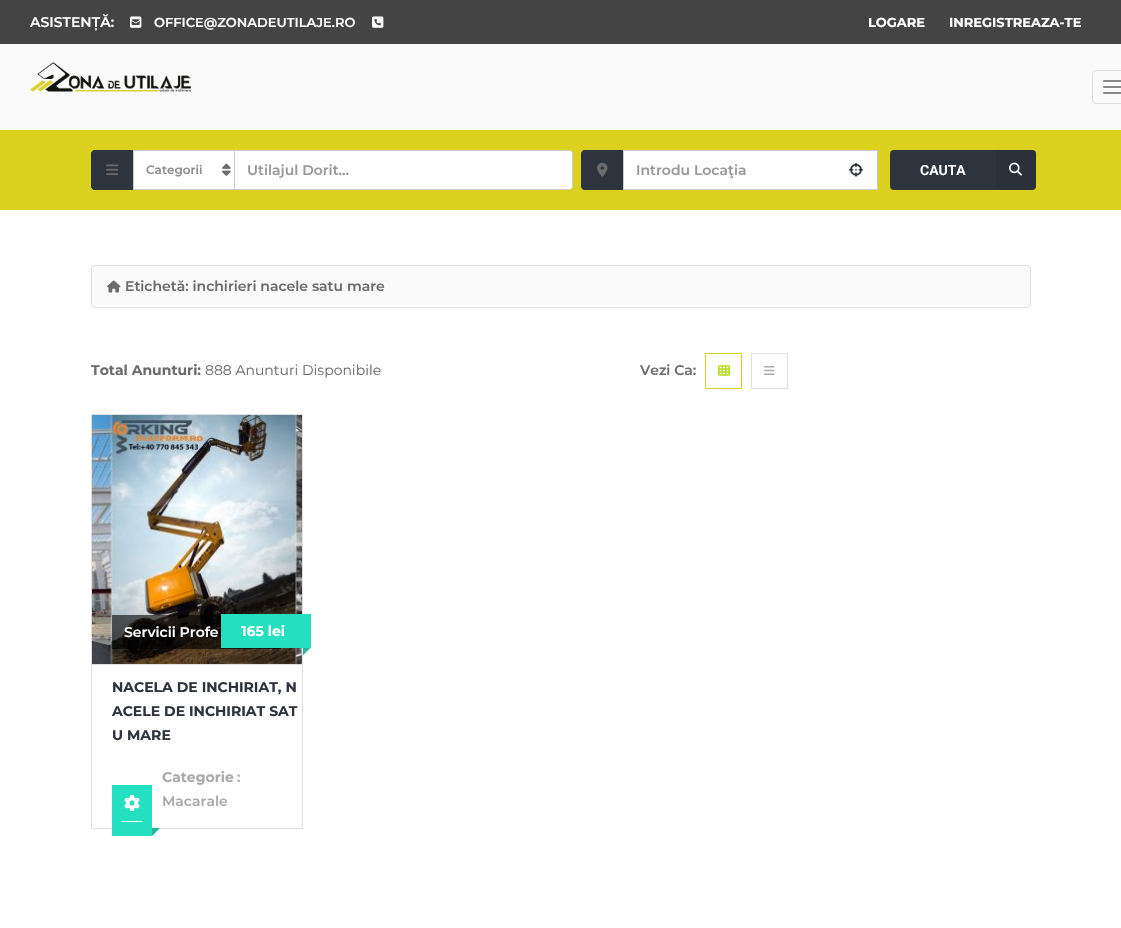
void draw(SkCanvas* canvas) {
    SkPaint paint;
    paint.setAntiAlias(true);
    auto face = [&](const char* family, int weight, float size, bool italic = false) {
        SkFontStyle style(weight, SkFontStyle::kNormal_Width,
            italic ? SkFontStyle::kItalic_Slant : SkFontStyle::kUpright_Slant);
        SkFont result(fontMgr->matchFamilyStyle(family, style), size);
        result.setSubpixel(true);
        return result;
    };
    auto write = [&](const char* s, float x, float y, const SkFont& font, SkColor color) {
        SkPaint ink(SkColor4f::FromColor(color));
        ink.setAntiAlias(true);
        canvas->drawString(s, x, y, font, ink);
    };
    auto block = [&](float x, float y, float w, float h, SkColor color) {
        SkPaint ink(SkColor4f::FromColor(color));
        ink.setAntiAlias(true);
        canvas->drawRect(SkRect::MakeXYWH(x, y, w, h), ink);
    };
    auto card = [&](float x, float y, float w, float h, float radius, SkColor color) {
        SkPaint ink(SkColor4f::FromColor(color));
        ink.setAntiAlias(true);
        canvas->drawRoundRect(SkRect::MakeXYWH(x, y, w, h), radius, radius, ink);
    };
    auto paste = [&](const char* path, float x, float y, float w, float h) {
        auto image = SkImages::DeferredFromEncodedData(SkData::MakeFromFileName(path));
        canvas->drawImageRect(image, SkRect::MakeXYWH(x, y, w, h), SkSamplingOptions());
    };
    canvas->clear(SK_ColorWHITE);
    block(0, 0, 1121, 44, SkColorSetRGB(68, 68, 68));
    auto kFont1 = face("Montserrat", 600, 14);
    write("ASISTENȚĂ:", 30, 27, kFont1, SK_ColorWHITE);
    paste("pic1.png", 130, 16, 12, 12);
    auto kFont2 = face("Montserrat", 600, 13);
    write("OFFICE@ZONADEUTILAJE.RO", 154, 27, kFont2, SK_ColorWHITE);
    paste("pic2.png", 372, 16, 12, 12);
    auto kFont3 = face("Montserrat", 700, 13);
    write("LOGARE", 868, 27, kFont3, SK_ColorWHITE);
    write("INREGISTREAZA-TE", 949, 27, kFont3, SK_ColorWHITE);
    block(0, 44, 1121, 86, SkColorSetRGB(250, 250, 250));
    paste("pic3.png", 30, 62, 161, 30);
    paint.setStyle(SkPaint::kStroke_Style);
    paint.setStrokeWidth(1);
    paint.setColor(SkColorSetRGB(221, 221, 221));
    canvas->drawRoundRect(SkRect::MakeXYWH(1092.5f, 70.5f, 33, 33), 3.5f, 3.5f, paint);
    card(1103, 80, 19, 2, 1, SkColorSetRGB(136, 136, 136));
    card(1103, 86, 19, 2, 1, SkColorSetRGB(136, 136, 136));
    card(1103, 92, 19, 2, 1, SkColorSetRGB(136, 136, 136));
    block(0, 130, 1121, 80, SkColorSetRGB(221, 209, 31));
    paint.setStyle(SkPaint::kFill_Style);
    paint.setColor(SkColorSetRGB(45, 52, 62));
    canvas->drawPath(SkPathBuilder().moveTo(95, 150).lineTo(133, 150).lineTo(133, 190).lineTo(95, 190).cubicTo(93, 190, 91, 188, 91, 186).lineTo(91, 154).cubicTo(91, 152, 93, 150, 95, 150).close().detach(), paint);
    canvas->drawPath(SkPathBuilder(SkPathFillType::kEvenOdd).moveTo(95, 150).lineTo(133, 150).lineTo(133, 190).lineTo(95, 190).cubicTo(93, 190, 91, 188, 91, 186).lineTo(91, 154).cubicTo(91, 152, 93, 150, 95, 150).close().moveTo(95, 151).lineTo(133, 151).lineTo(133, 189).lineTo(95, 189).cubicTo(93, 189, 92, 188, 92, 186).lineTo(92, 154).cubicTo(92, 152, 93, 151, 95, 151).close().detach(), paint);
    paste("pic4.png", 106, 164, 13, 11);
    paint.setColor(SK_ColorWHITE);
    canvas->drawRect(SkRect::MakeXYWH(133.5f, 150.5f, 101, 39), paint);
    paint.setStyle(SkPaint::kStroke_Style);
    paint.setColor(SkColorSetRGB(204, 204, 204));
    canvas->drawRect(SkRect::MakeXYWH(133.5f, 150.5f, 101, 39), paint);
    auto kFont4 = face("Montserrat", 600, 12);
    write("Categorii", 146, 174, kFont4, SkColorSetRGB(142, 142, 142));
    paste("pic5.png", 222, 163, 9, 13);
    paint.setStyle(SkPaint::kFill_Style);
    paint.setColor(SK_ColorWHITE);
    canvas->drawPath(SkPathBuilder().moveTo(235, 150).lineTo(569, 150).cubicTo(571, 150, 573, 152, 573, 154).lineTo(573, 186).cubicTo(573, 188, 571, 190, 569, 190).lineTo(235, 190).close().detach(), paint);
    paint.setColor(SkColorSetRGB(204, 204, 204));
    canvas->drawPath(SkPathBuilder(SkPathFillType::kEvenOdd).moveTo(235, 150).lineTo(569, 150).cubicTo(571, 150, 573, 152, 573, 154).lineTo(573, 186).cubicTo(573, 188, 571, 190, 569, 190).lineTo(235, 190).close().moveTo(235, 151).lineTo(569, 151).cubicTo(571, 151, 572, 152, 572, 154).lineTo(572, 186).cubicTo(572, 188, 571, 189, 569, 189).lineTo(235, 189).close().detach(), paint);
    write("Utilajul Dorit...", 247, 175, kFont1, SkColorSetRGB(153, 153, 153));
    paint.setColor(SkColorSetRGB(45, 52, 62));
    canvas->drawPath(SkPathBuilder().moveTo(585, 150).lineTo(623, 150).lineTo(623, 190).lineTo(585, 190).cubicTo(583, 190, 581, 188, 581, 186).lineTo(581, 154).cubicTo(581, 152, 583, 150, 585, 150).close().detach(), paint);
    canvas->drawPath(SkPathBuilder(SkPathFillType::kEvenOdd).moveTo(585, 150).lineTo(623, 150).lineTo(623, 190).lineTo(585, 190).cubicTo(583, 190, 581, 188, 581, 186).lineTo(581, 154).cubicTo(581, 152, 583, 150, 585, 150).close().moveTo(585, 151).lineTo(623, 151).lineTo(623, 189).lineTo(585, 189).cubicTo(583, 189, 582, 188, 582, 186).lineTo(582, 154).cubicTo(582, 152, 583, 151, 585, 151).close().detach(), paint);
    paste("pic6.png", 597, 162, 11, 15);
    paint.setColor(SK_ColorWHITE);
    canvas->drawRect(SkRect::MakeXYWH(623.5f, 150.5f, 254, 39), paint);
    paint.setStyle(SkPaint::kStroke_Style);
    paint.setColor(SkColorSetRGB(204, 204, 204));
    canvas->drawRect(SkRect::MakeXYWH(623.5f, 150.5f, 254, 39), paint);
    write("Introdu Locaţia", 636, 175, kFont1, SkColorSetRGB(153, 153, 153));
    paste("pic7.png", 849, 162, 14, 15);
    card(890, 150, 146, 40, 4, SkColorSetRGB(45, 52, 62));
    auto kFont5 = face("Roboto", 600, 14);
    write("CAUTA", 920, 175, kFont5, SK_ColorWHITE);
    paint.setStyle(SkPaint::kFill_Style);
    paint.setColor(SkColorSetARGB(77, 34, 39, 46));
    canvas->drawPath(SkPathBuilder().moveTo(996, 150).lineTo(1032, 150).cubicTo(1034, 150, 1036, 152, 1036, 154).lineTo(1036, 186).cubicTo(1036, 188, 1034, 190, 1032, 190).lineTo(996, 190).close().detach(), paint);
    paste("pic8.png", 1009, 162, 13, 14);
    paint.setColor(SkColorSetRGB(250, 250, 250));
    canvas->drawRoundRect(SkRect::MakeXYWH(91.5f, 265.5f, 939, 42), 3.5f, 3.5f, paint);
    paint.setStyle(SkPaint::kStroke_Style);
    paint.setColor(SkColorSetRGB(224, 224, 224));
    canvas->drawRoundRect(SkRect::MakeXYWH(91.5f, 265.5f, 939, 42), 3.5f, 3.5f, paint);
    paste("pic9.png", 107, 280, 14, 13);
    write("Etichetă: inchirieri nacele satu mare", 125, 291, kFont1, SkColorSetRGB(108, 108, 108));
    auto kFont6 = face("Montserrat", 700, 14);
    write("Total Anunturi:", 91, 375, kFont6, SkColorSetRGB(108, 108, 108));
    auto kFont7 = face("Montserrat", 400, 14);
    write("888 Anunturi Disponibile", 205, 375, kFont7, SkColorSetRGB(108, 108, 108));
    write("Vezi Ca:", 640, 375, kFont1, SkColorSetRGB(108, 108, 108));
    paint.setColor(SkColorSetRGB(221, 209, 31));
    canvas->drawRect(SkRect::MakeXYWH(705.5f, 353.5f, 36, 35), paint);
    paste("pic10.png", 718, 365, 12, 11);
    paint.setColor(SkColorSetRGB(224, 224, 224));
    canvas->drawRect(SkRect::MakeXYWH(751.5f, 353.5f, 36, 35), paint);
    paste("pic11.png", 764, 366, 11, 9);
    block(91, 414, 212, 1, SkColorSetRGB(224, 224, 224));
    block(302, 414, 1, 250, SkColorSetRGB(224, 224, 224));
    block(91, 414, 1, 250, SkColorSetRGB(224, 224, 224));
    paste("pic12.png", 92, 415, 210, 249);
    block(112, 615, 169, 34, SkColorSetARGB(153, 0, 0, 0));
    write("Servicii Profe", 124, 637, kFont1, SK_ColorWHITE);
    block(221, 614, 90, 34, SkColorSetRGB(36, 224, 193));
    write("165 lei", 241, 636, kFont6, SK_ColorWHITE);
    paint.setStyle(SkPaint::kFill_Style);
    paint.setColor(SkColorSetRGB(36, 224, 193));
    canvas->drawPath(SkPathBuilder().moveTo(303, 647).lineTo(311, 647).lineTo(303, 655).close().detach(), paint);
    paint.setColor(SkColorSetARGB(46, 0, 0, 0));
    canvas->drawPath(SkPathBuilder().moveTo(303, 648).lineTo(311, 648).lineTo(303, 656).close().detach(), paint);
    paint.setStyle(SkPaint::kStroke_Style);
    paint.setColor(SkColorSetRGB(224, 224, 224));
    canvas->drawRect(SkRect::MakeXYWH(91.5f, 664.5f, 211, 164), paint);
    write("NACELA DE INCHIRIAT, N", 112, 692, kFont6, SkColorSetRGB(45, 52, 62));
    write("ACELE DE INCHIRIAT SAT", 112, 716, kFont6, SkColorSetRGB(45, 52, 62));
    write("U MARE", 112, 740, kFont6, SkColorSetRGB(45, 52, 62));
    block(112, 785, 40, 51, SkColorSetRGB(36, 224, 193));
    block(122, 821, 20, 1, SK_ColorWHITE);
    paste("pic13.png", 124, 795, 16, 16);
    paint.setStyle(SkPaint::kFill_Style);
    paint.setColor(SkColorSetRGB(36, 224, 193));
    canvas->drawPath(SkPathBuilder().moveTo(152, 828).lineTo(160, 828).lineTo(152, 836).close().detach(), paint);
    paint.setColor(SkColorSetARGB(46, 0, 0, 0));
    canvas->drawPath(SkPathBuilder().moveTo(152, 828).lineTo(160, 828).lineTo(152, 836).close().detach(), paint);
    write("Categorie", 162, 782, kFont6, SkColorSetRGB(170, 170, 170));
    write(":", 237, 782, kFont1, SkColorSetRGB(170, 170, 170));
    write("Macarale", 162, 806, kFont1, SkColorSetRGB(170, 170, 170));
}
